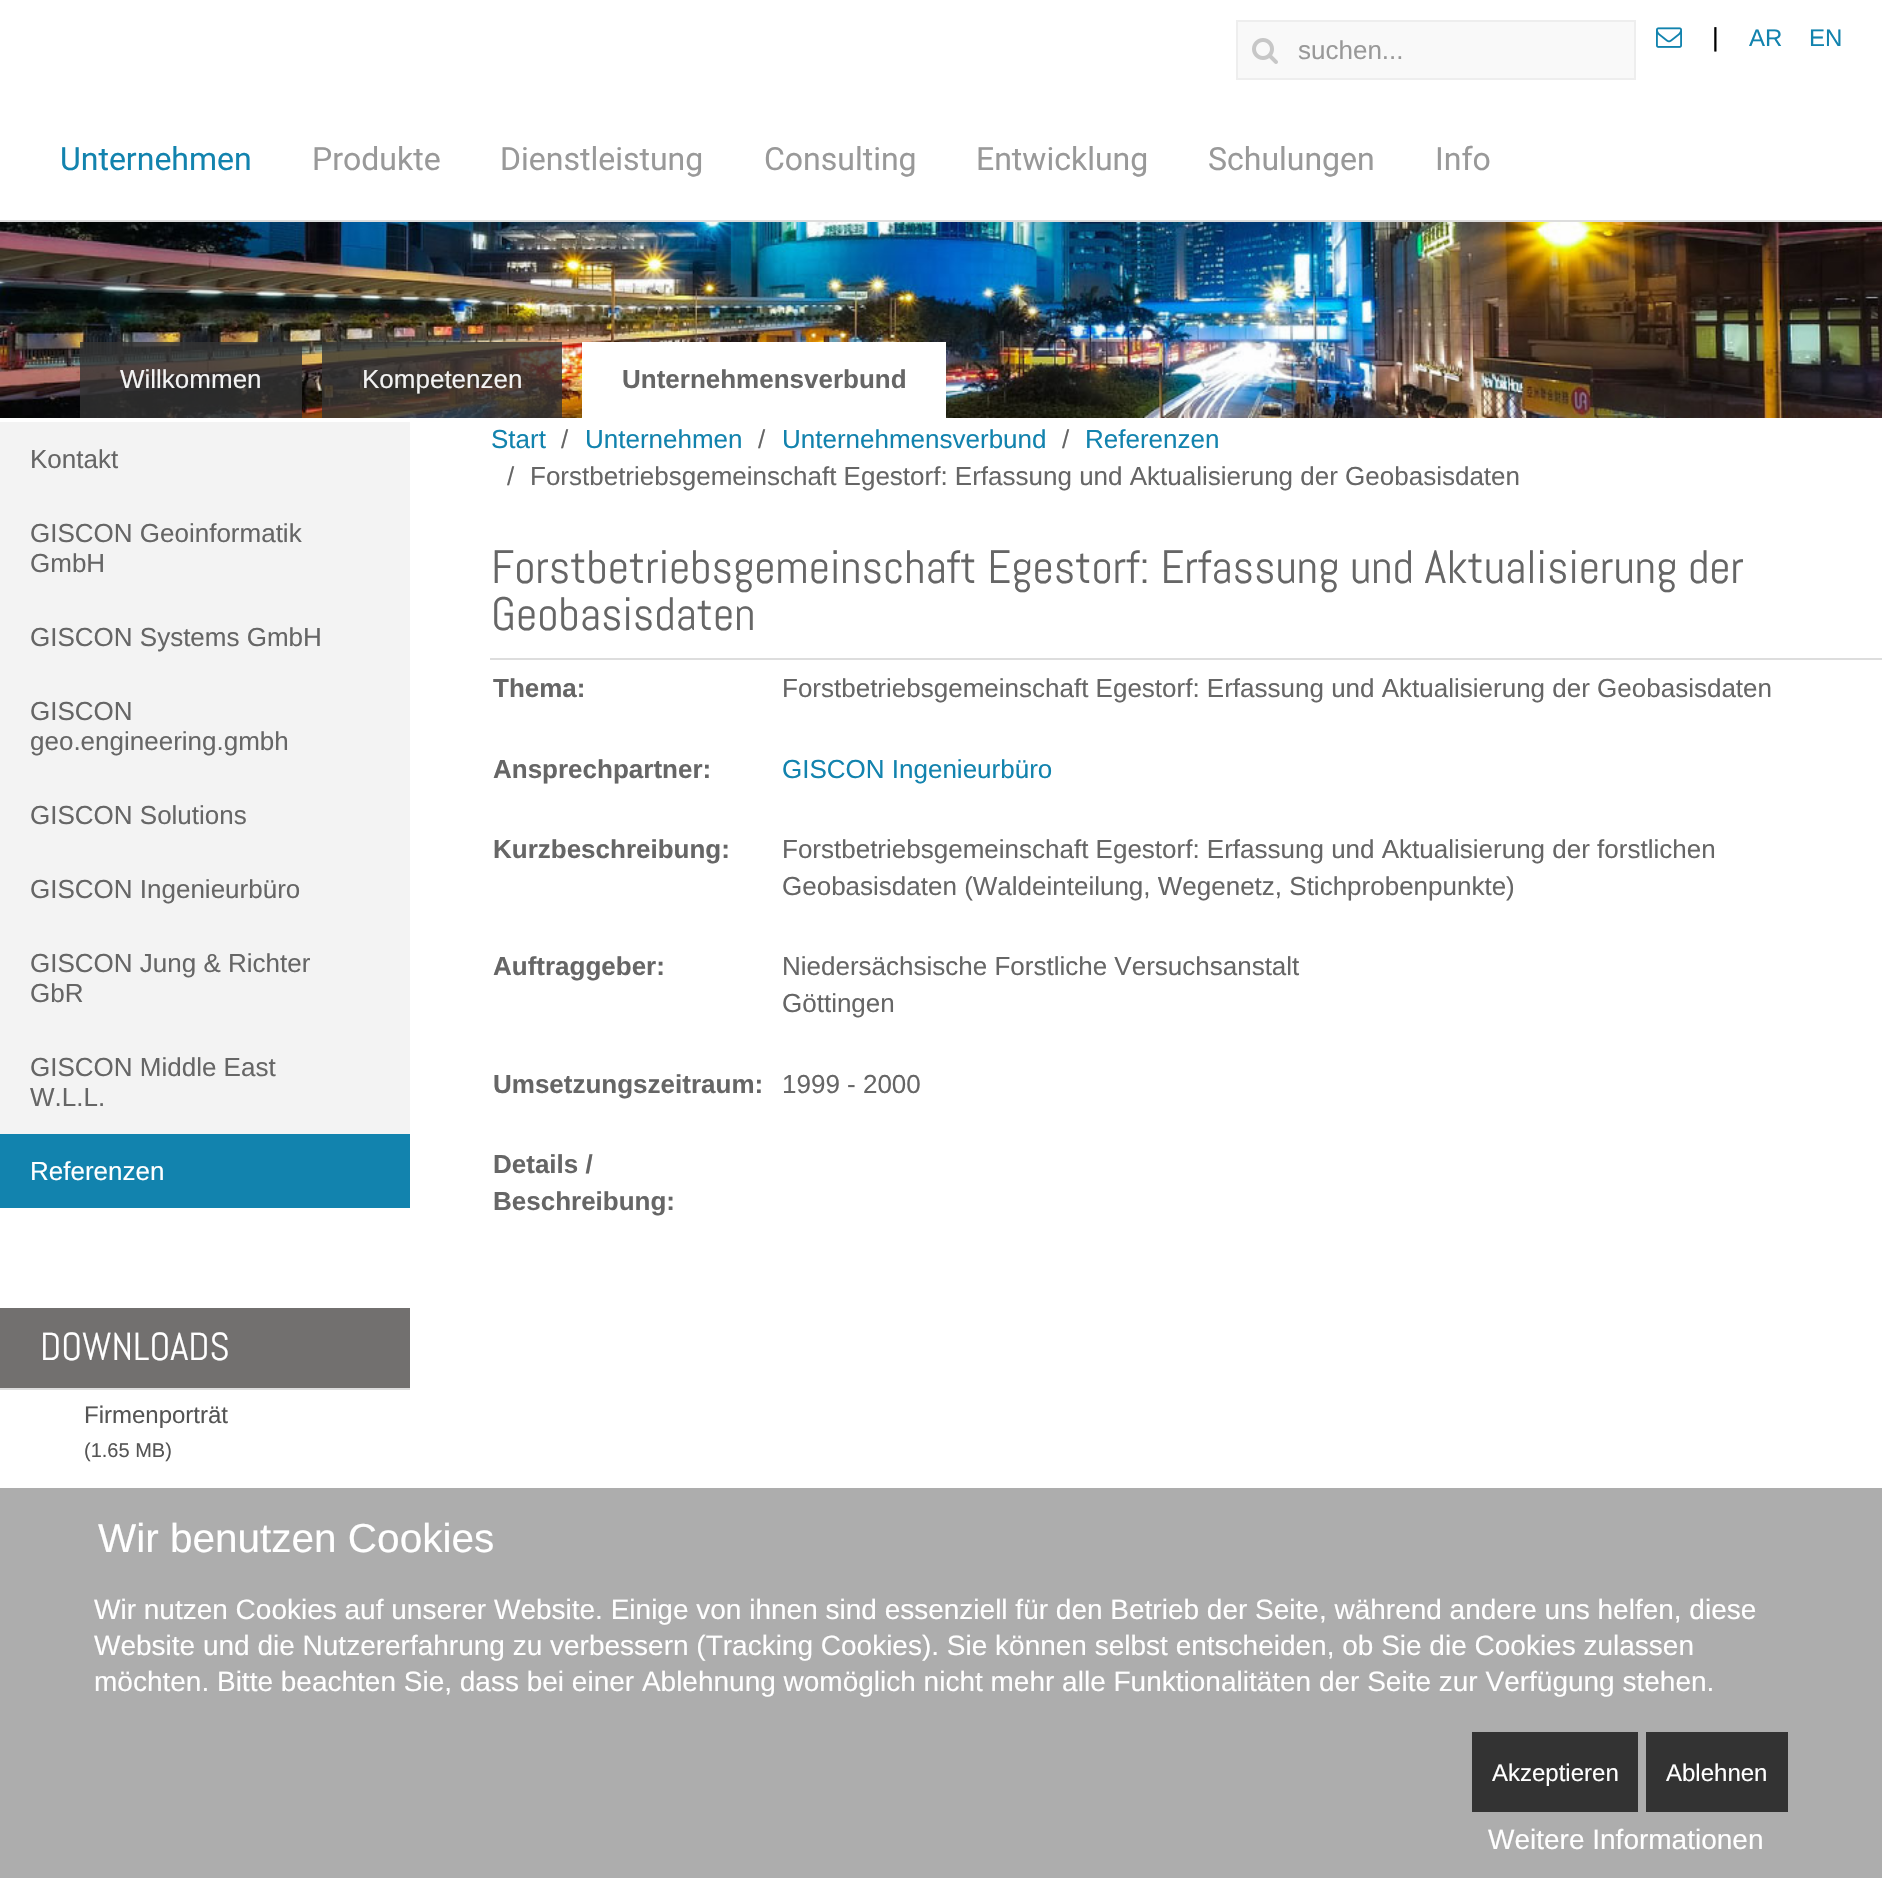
void draw(SkCanvas* canvas) {
    SkPaint paint;
    paint.setAntiAlias(true);
    auto face = [&](const char* family, int weight, float size, bool italic = false) {
        SkFontStyle style(weight, SkFontStyle::kNormal_Width,
            italic ? SkFontStyle::kItalic_Slant : SkFontStyle::kUpright_Slant);
        SkFont result(fontMgr->matchFamilyStyle(family, style), size);
        result.setSubpixel(true);
        return result;
    };
    auto write = [&](const char* s, float x, float y, const SkFont& font, SkColor color) {
        SkPaint ink(SkColor4f::FromColor(color));
        ink.setAntiAlias(true);
        canvas->drawString(s, x, y, font, ink);
    };
    auto block = [&](float x, float y, float w, float h, SkColor color) {
        SkPaint ink(SkColor4f::FromColor(color));
        ink.setAntiAlias(true);
        canvas->drawRect(SkRect::MakeXYWH(x, y, w, h), ink);
    };
    auto paste = [&](const char* path, float x, float y, float w, float h) {
        auto image = SkImages::DeferredFromEncodedData(SkData::MakeFromFileName(path));
        canvas->drawImageRect(image, SkRect::MakeXYWH(x, y, w, h), SkSamplingOptions());
    };
    canvas->clear(SK_ColorWHITE);
    paste("pic1.png", 1656, 27, 26, 21);
    auto kFont1 = face("Liberation Sans", 400, 26);
    write("|", 1712, 46, kFont1, SK_ColorBLACK);
    auto kFont2 = face("Liberation Sans", 400, 24);
    write("AR", 1749, 46, kFont2, SkColorSetRGB(18, 131, 174));
    write("EN", 1809, 46, kFont2, SkColorSetRGB(18, 131, 174));
    paint.setColor(SkColorSetRGB(249, 249, 249));
    canvas->drawRect(SkRect::MakeXYWH(1237, 21, 398, 58), paint);
    paint.setStyle(SkPaint::kStroke_Style);
    paint.setStrokeWidth(2);
    paint.setColor(SkColorSetRGB(238, 238, 238));
    canvas->drawRect(SkRect::MakeXYWH(1237, 21, 398, 58), paint);
    paste("pic2.png", 1252, 38, 26, 26);
    write("suchen...", 1298, 59, kFont1, SkColorSetRGB(153, 153, 153));
    block(0, 220, 1882, 2, SkColorSetRGB(221, 221, 221));
    auto kFont3 = face("Roboto", 400, 32);
    write("Unternehmen", 60, 170, kFont3, SkColorSetRGB(18, 131, 174));
    write("Produkte", 312, 170, kFont3, SkColorSetRGB(153, 153, 153));
    write("Dienstleistung", 500, 170, kFont3, SkColorSetRGB(153, 153, 153));
    write("Consulting", 764, 170, kFont3, SkColorSetRGB(153, 153, 153));
    write("Entwicklung", 976, 170, kFont3, SkColorSetRGB(153, 153, 153));
    write("Schulungen", 1208, 170, kFont3, SkColorSetRGB(153, 153, 153));
    write("Info", 1435, 170, kFont3, SkColorSetRGB(153, 153, 153));
    paste("pic3.png", 0, 222, 1882, 196);
    block(80, 342, 222, 76, SkColorSetARGB(204, 51, 51, 51));
    write("Willkommen", 120, 388, kFont1, SkColorSetRGB(243, 243, 243));
    block(322, 342, 240, 76, SkColorSetARGB(204, 51, 51, 51));
    write("Kompetenzen", 362, 388, kFont1, SkColorSetRGB(243, 243, 243));
    block(582, 342, 364, 76, SK_ColorWHITE);
    auto kFont4 = face("Liberation Sans", 700, 26);
    write("Unternehmensverbund", 622, 388, kFont4, SkColorSetRGB(102, 102, 102));
    block(0, 422, 410, 712, SkColorSetRGB(243, 243, 243));
    write("Kontakt", 30, 468, kFont1, SkColorSetRGB(102, 102, 102));
    write("GISCON Geoinformatik", 30, 542, kFont1, SkColorSetRGB(102, 102, 102));
    write("GmbH", 30, 572, kFont1, SkColorSetRGB(102, 102, 102));
    write("GISCON Systems GmbH", 30, 646, kFont1, SkColorSetRGB(102, 102, 102));
    write("GISCON", 30, 720, kFont1, SkColorSetRGB(102, 102, 102));
    write("geo.engineering.gmbh", 30, 750, kFont1, SkColorSetRGB(102, 102, 102));
    write("GISCON Solutions", 30, 824, kFont1, SkColorSetRGB(102, 102, 102));
    write("GISCON Ingenieurbüro", 30, 898, kFont1, SkColorSetRGB(102, 102, 102));
    write("GISCON Jung & Richter", 30, 972, kFont1, SkColorSetRGB(102, 102, 102));
    write("GbR", 30, 1002, kFont1, SkColorSetRGB(102, 102, 102));
    write("GISCON Middle East", 30, 1076, kFont1, SkColorSetRGB(102, 102, 102));
    write("W.L.L.", 30, 1106, kFont1, SkColorSetRGB(102, 102, 102));
    block(0, 1134, 410, 74, SkColorSetRGB(18, 131, 174));
    write("Referenzen", 30, 1180, kFont1, SK_ColorWHITE);
    block(0, 1308, 410, 80, SkColorSetRGB(114, 112, 111));
    block(0, 1388, 410, 2, SkColorSetRGB(221, 221, 221));
    auto kFont5 = face("Abel", 400, 39);
    write("DOWNLOADS", 40, 1360, kFont5, SK_ColorWHITE);
    write("Firmenporträt", 84, 1423, kFont2, SkColorSetRGB(85, 85, 85));
    auto kFont6 = face("Liberation Sans", 400, 20);
    write("(1.65 MB)", 84, 1457, kFont6, SkColorSetRGB(85, 85, 85));
    write("Start", 491, 448, kFont1, SkColorSetRGB(18, 131, 174));
    write("/", 561, 448, kFont1, SkColorSetRGB(102, 102, 102));
    write("Unternehmen", 585, 448, kFont1, SkColorSetRGB(18, 131, 174));
    write("/", 758, 448, kFont1, SkColorSetRGB(102, 102, 102));
    write("Unternehmensverbund", 782, 448, kFont1, SkColorSetRGB(18, 131, 174));
    write("/", 1062, 448, kFont1, SkColorSetRGB(102, 102, 102));
    write("Referenzen", 1085, 448, kFont1, SkColorSetRGB(18, 131, 174));
    write("/", 507, 485, kFont1, SkColorSetRGB(102, 102, 102));
    write("Forstbetriebsgemeinschaft Egestorf: Erfassung und Aktualisierung der Geobasisdaten", 530, 485, kFont1, SkColorSetRGB(102, 102, 102));
    block(490, 658, 1392, 2, SkColorSetRGB(221, 221, 221));
    auto kFont7 = face("Abel", 400, 46.8f);
    write("Forstbetriebsgemeinschaft Egestorf: Erfassung und Aktualisierung der", 491, 583, kFont7, SkColorSetRGB(102, 102, 102));
    write("Geobasisdaten", 491, 630, kFont7, SkColorSetRGB(102, 102, 102));
    write("Thema:", 493, 697, kFont4, SkColorSetRGB(102, 102, 102));
    write("Forstbetriebsgemeinschaft Egestorf: Erfassung und Aktualisierung der Geobasisdaten", 782, 697, kFont1, SkColorSetRGB(102, 102, 102));
    write("Ansprechpartner:", 493, 778, kFont4, SkColorSetRGB(102, 102, 102));
    write("GISCON Ingenieurbüro", 782, 778, kFont1, SkColorSetRGB(18, 131, 174));
    write("Kurzbeschreibung:", 493, 858, kFont4, SkColorSetRGB(102, 102, 102));
    write("Forstbetriebsgemeinschaft Egestorf: Erfassung und Aktualisierung der forstlichen", 782, 858, kFont1, SkColorSetRGB(102, 102, 102));
    write("Geobasisdaten (Waldeinteilung, Wegenetz, Stichprobenpunkte)", 782, 895, kFont1, SkColorSetRGB(102, 102, 102));
    write("Auftraggeber:", 493, 975, kFont4, SkColorSetRGB(102, 102, 102));
    write("Niedersächsische Forstliche Versuchsanstalt", 782, 975, kFont1, SkColorSetRGB(102, 102, 102));
    write("Göttingen", 782, 1012, kFont1, SkColorSetRGB(102, 102, 102));
    write("Umsetzungszeitraum:", 493, 1093, kFont4, SkColorSetRGB(102, 102, 102));
    write("1999 - 2000", 782, 1093, kFont1, SkColorSetRGB(102, 102, 102));
    write("Details /", 493, 1173, kFont4, SkColorSetRGB(102, 102, 102));
    write("Beschreibung:", 493, 1210, kFont4, SkColorSetRGB(102, 102, 102));
    block(0, 1488, 1882, 390, SkColorSetRGB(173, 173, 173));
    auto kFont8 = face("Liberation Sans", 400, 40.5f);
    write("Wir benutzen Cookies", 98, 1552, kFont8, SK_ColorWHITE);
    auto kFont9 = face("Liberation Sans", 400, 28);
    write("Wir nutzen Cookies auf unserer Website. Einige von ihnen sind essenziell für den Betrieb der Seite, während andere uns helfen, diese", 94, 1619, kFont9, SK_ColorWHITE);
    write("Website und die Nutzererfahrung zu verbessern (Tracking Cookies). Sie können selbst entscheiden, ob Sie die Cookies zulassen", 94, 1655, kFont9, SK_ColorWHITE);
    write("möchten. Bitte beachten Sie, dass bei einer Ablehnung womöglich nicht mehr alle Funktionalitäten der Seite zur Verfügung stehen.", 94, 1691, kFont9, SK_ColorWHITE);
    block(1472, 1732, 166, 80, SkColorSetRGB(51, 51, 51));
    write("Akzeptieren", 1492, 1781, kFont2, SK_ColorWHITE);
    block(1646, 1732, 142, 80, SkColorSetRGB(51, 51, 51));
    write("Ablehnen", 1666, 1781, kFont2, SK_ColorWHITE);
    write("Weitere Informationen", 1488, 1849, kFont9, SK_ColorWHITE);
}
